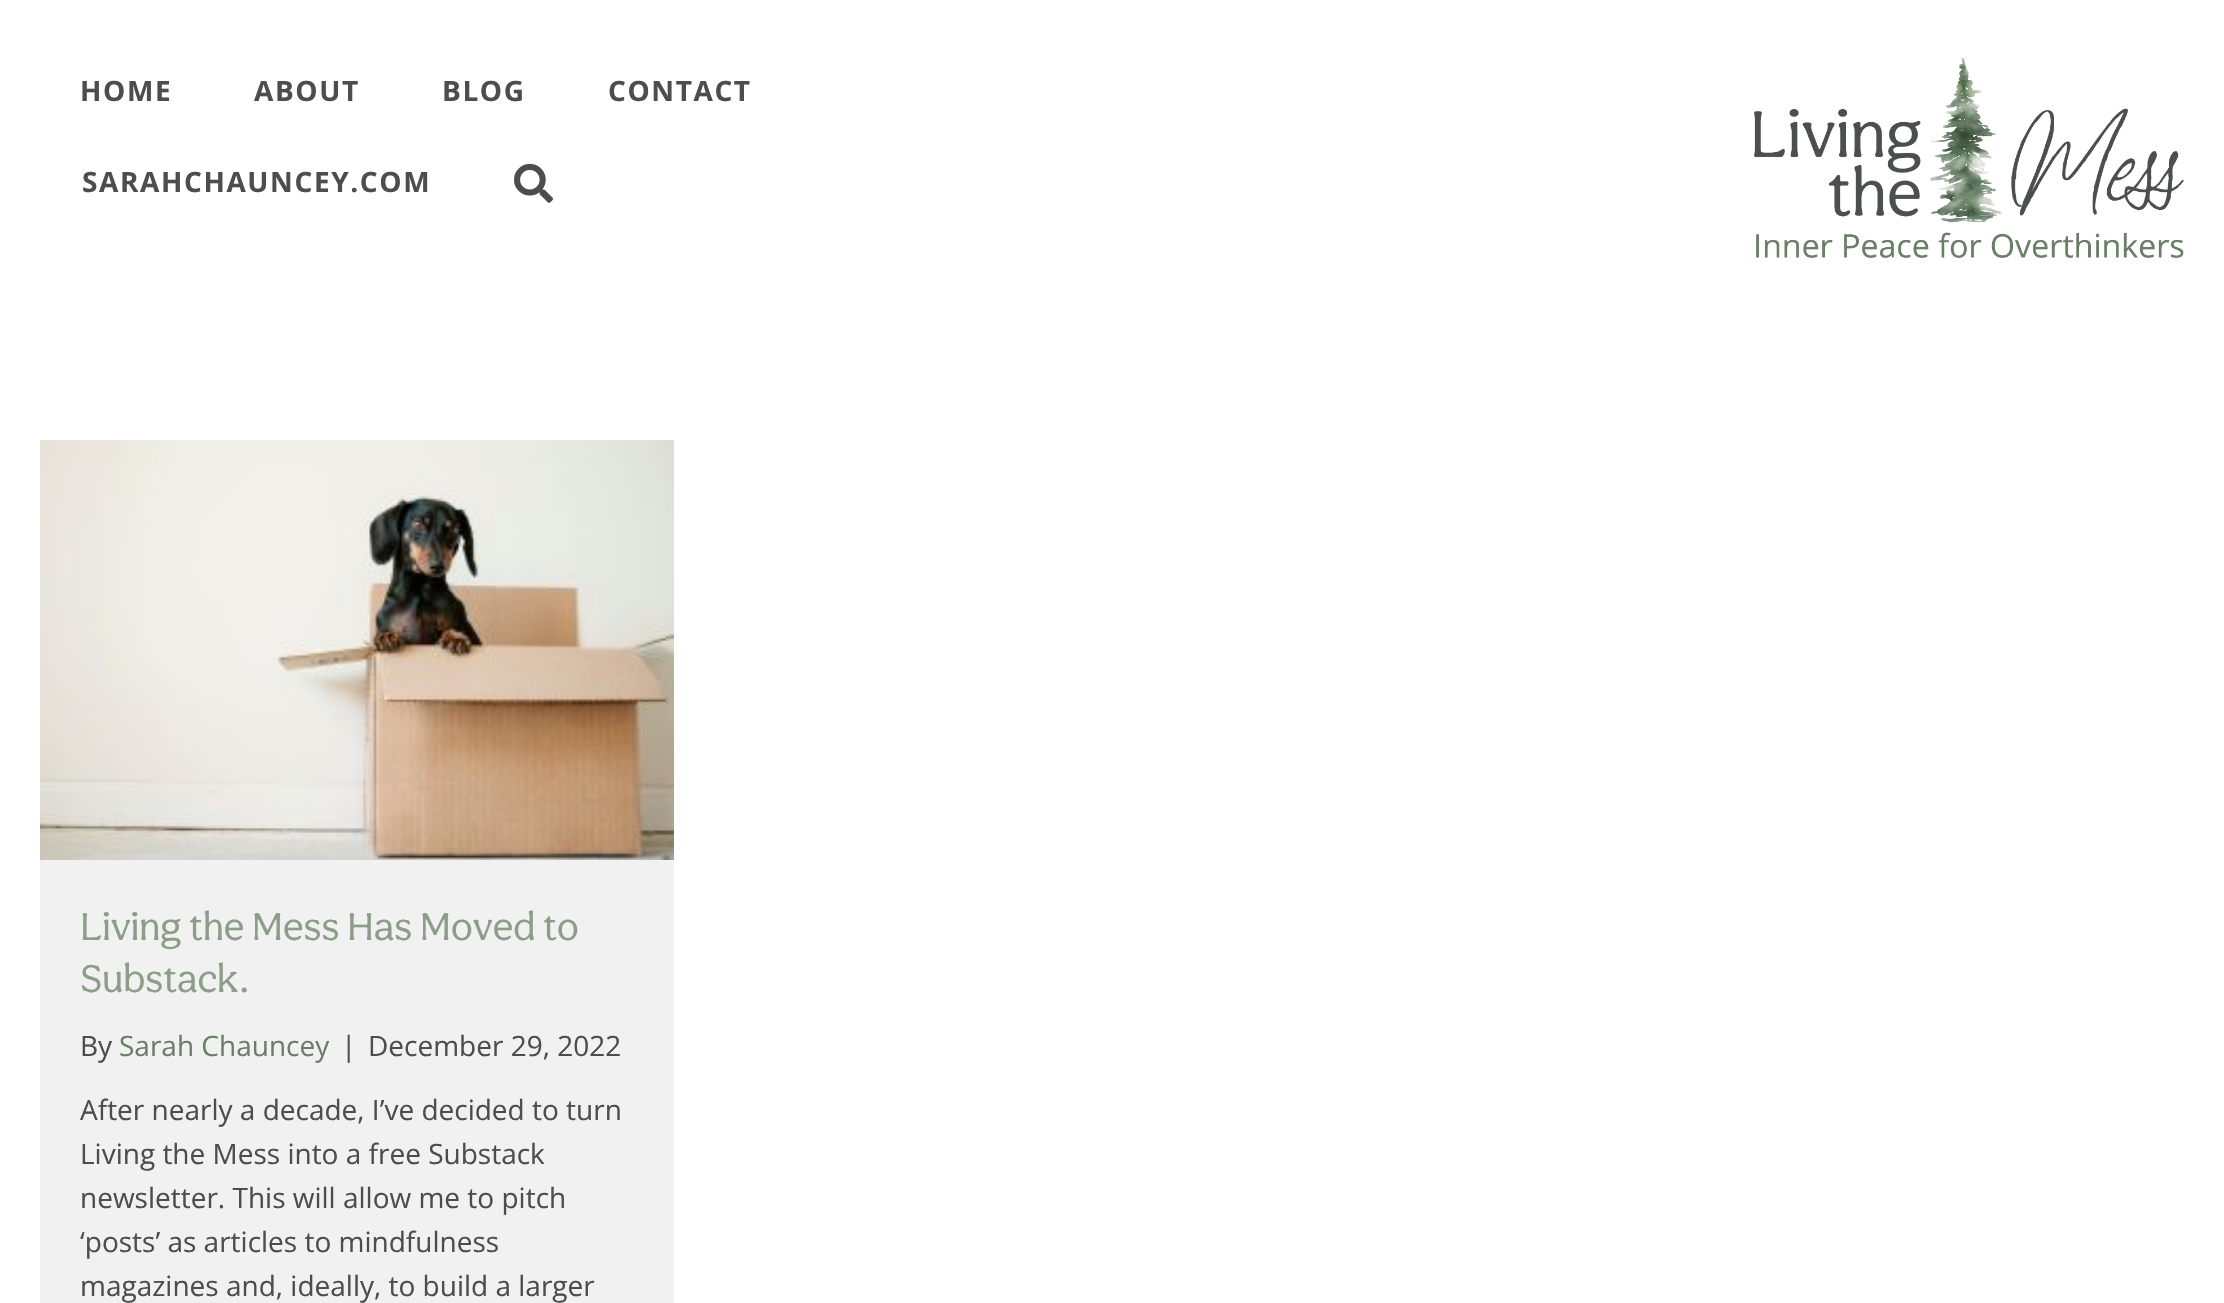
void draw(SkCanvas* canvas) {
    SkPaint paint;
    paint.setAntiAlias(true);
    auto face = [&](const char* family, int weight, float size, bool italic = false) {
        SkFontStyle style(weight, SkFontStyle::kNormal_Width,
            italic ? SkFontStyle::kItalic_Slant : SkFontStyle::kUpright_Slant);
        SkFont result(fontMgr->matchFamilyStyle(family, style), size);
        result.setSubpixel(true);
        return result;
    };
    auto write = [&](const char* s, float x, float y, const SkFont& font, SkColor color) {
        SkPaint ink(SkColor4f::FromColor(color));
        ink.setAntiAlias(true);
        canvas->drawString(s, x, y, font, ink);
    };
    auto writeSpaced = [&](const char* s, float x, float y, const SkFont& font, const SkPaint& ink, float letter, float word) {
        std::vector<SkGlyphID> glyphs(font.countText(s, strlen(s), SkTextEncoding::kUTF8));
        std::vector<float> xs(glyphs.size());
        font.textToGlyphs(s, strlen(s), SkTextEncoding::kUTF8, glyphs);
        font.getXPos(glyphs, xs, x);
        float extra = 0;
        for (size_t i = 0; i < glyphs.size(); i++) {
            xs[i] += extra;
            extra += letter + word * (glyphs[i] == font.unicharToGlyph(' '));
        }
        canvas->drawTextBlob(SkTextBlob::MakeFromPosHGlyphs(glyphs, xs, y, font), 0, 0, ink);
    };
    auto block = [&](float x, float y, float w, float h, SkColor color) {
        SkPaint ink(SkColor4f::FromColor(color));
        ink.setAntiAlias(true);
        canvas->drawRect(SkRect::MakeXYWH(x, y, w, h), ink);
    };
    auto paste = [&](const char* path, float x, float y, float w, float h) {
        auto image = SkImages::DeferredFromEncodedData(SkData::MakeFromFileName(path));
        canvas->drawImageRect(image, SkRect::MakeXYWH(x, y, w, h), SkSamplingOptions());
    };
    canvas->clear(SK_ColorWHITE);
    auto kFont1 = face("Open Sans", 700, 28);
    paint.setColor(SkColorSetRGB(77, 77, 78));
    writeSpaced("HOME", 80, 101, kFont1, paint, 1.6f, 0);
    writeSpaced("ABOUT", 254, 101, kFont1, paint, 1.6f, 0);
    writeSpaced("BLOG", 442, 101, kFont1, paint, 1.6f, 0);
    writeSpaced("CONTACT", 608, 101, kFont1, paint, 1.6f, 0);
    writeSpaced("SARAHCHAUNCEY.COM", 82, 192, kFont1, paint, 1.6f, 0);
    paste("pic1.png", 514, 163, 39, 40);
    paste("pic2.png", 1754, 57, 430, 201);
    block(40, 860, 634, 443, SkColorSetRGB(241, 241, 241));
    paste("pic3.png", 40, 440, 634, 420);
    auto kFont2 = face("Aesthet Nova", 400, 40);
    write("Living the Mess Has Moved to", 80, 940, kFont2, SkColorSetRGB(141, 158, 136));
    write("Substack.", 80, 992, kFont2, SkColorSetRGB(141, 158, 136));
    auto kFont3 = face("Open Sans", 400, 28);
    write("By", 80, 1056, kFont3, SkColorSetRGB(77, 77, 78));
    write("Sarah Chauncey", 119, 1056, kFont3, SkColorSetRGB(107, 126, 104));
    write("|", 341, 1056, kFont3, SkColorSetRGB(77, 77, 78));
    write("December 29, 2022", 368, 1056, kFont3, SkColorSetRGB(77, 77, 78));
    write("After nearly a decade, I’ve decided to turn", 80, 1120, kFont3, SkColorSetRGB(77, 77, 78));
    write("Living the Mess into a free Substack", 80, 1164, kFont3, SkColorSetRGB(77, 77, 78));
    write("newsletter. This will allow me to pitch", 80, 1208, kFont3, SkColorSetRGB(77, 77, 78));
    write("‘posts’ as articles to mindfulness", 80, 1252, kFont3, SkColorSetRGB(77, 77, 78));
    write("magazines and, ideally, to build a larger", 80, 1296, kFont3, SkColorSetRGB(77, 77, 78));
}
